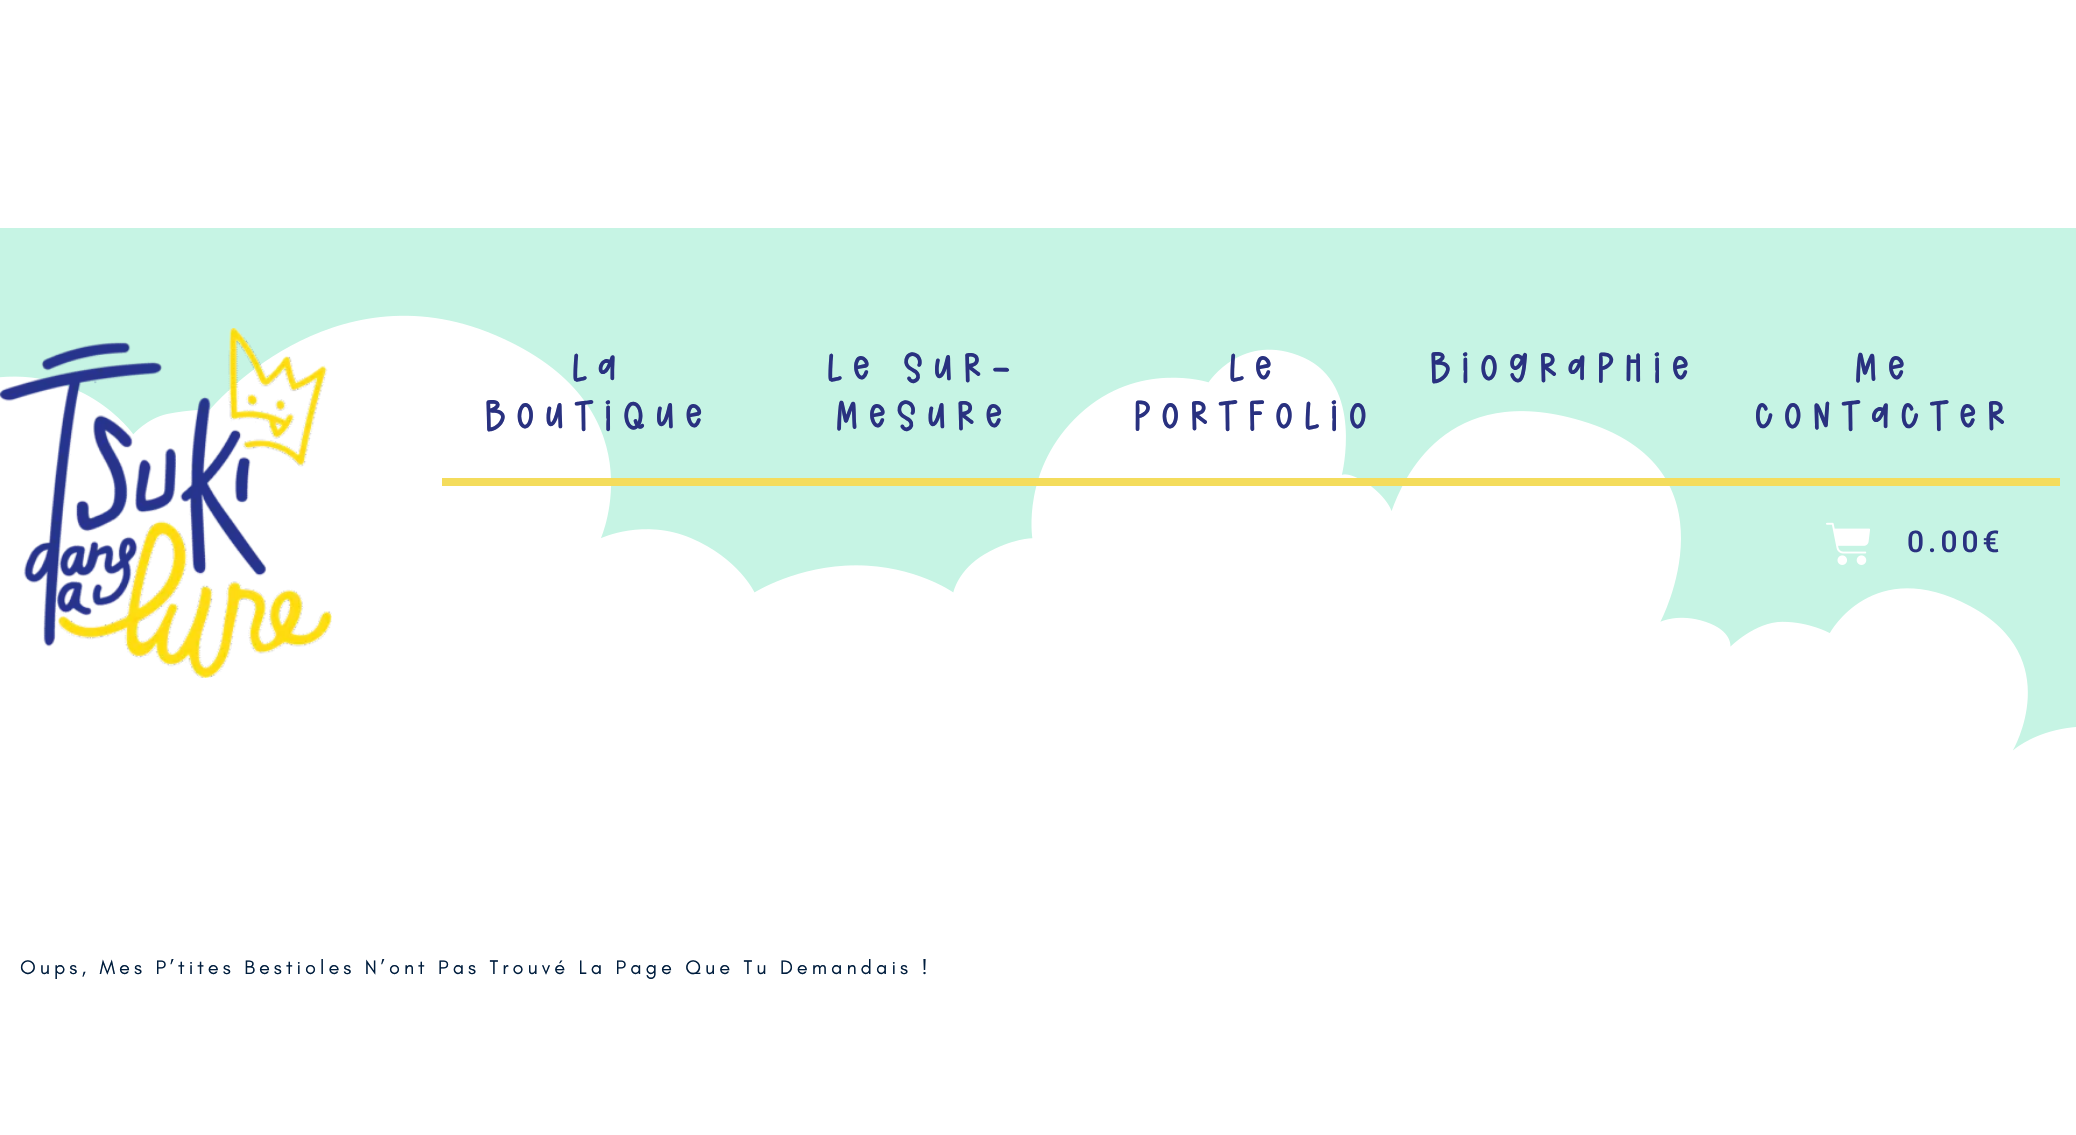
void draw(SkCanvas* canvas) {
    SkPaint paint;
    paint.setAntiAlias(true);
    auto face = [&](const char* family, int weight, float size, bool italic = false) {
        SkFontStyle style(weight, SkFontStyle::kNormal_Width,
            italic ? SkFontStyle::kItalic_Slant : SkFontStyle::kUpright_Slant);
        SkFont result(fontMgr->matchFamilyStyle(family, style), size);
        result.setSubpixel(true);
        return result;
    };
    auto writeSpaced = [&](const char* s, float x, float y, const SkFont& font, const SkPaint& ink, float letter, float word) {
        std::vector<SkGlyphID> glyphs(font.countText(s, strlen(s), SkTextEncoding::kUTF8));
        std::vector<float> xs(glyphs.size());
        font.textToGlyphs(s, strlen(s), SkTextEncoding::kUTF8, glyphs);
        font.getXPos(glyphs, xs, x);
        float extra = 0;
        for (size_t i = 0; i < glyphs.size(); i++) {
            xs[i] += extra;
            extra += letter + word * (glyphs[i] == font.unicharToGlyph(' '));
        }
        canvas->drawTextBlob(SkTextBlob::MakeFromPosHGlyphs(glyphs, xs, y, font), 0, 0, ink);
    };
    auto block = [&](float x, float y, float w, float h, SkColor color) {
        SkPaint ink(SkColor4f::FromColor(color));
        ink.setAntiAlias(true);
        canvas->drawRect(SkRect::MakeXYWH(x, y, w, h), ink);
    };
    auto paste = [&](const char* path, float x, float y, float w, float h) {
        auto image = SkImages::DeferredFromEncodedData(SkData::MakeFromFileName(path));
        canvas->drawImageRect(image, SkRect::MakeXYWH(x, y, w, h), SkSamplingOptions());
    };
    canvas->clear(SK_ColorWHITE);
    block(0, 228, 2076, 523, SkColorSetRGB(198, 244, 228));
    paste("pic1.png", 0, 315, 2076, 603);
    paste("pic2.png", 0, 328, 332, 350);
    auto kFont1 = face("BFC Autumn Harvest", 700, 40);
    paint.setColor(SkColorSetRGB(41, 49, 128));
    writeSpaced("la", 572, 382, kFont1, paint, 12.75f, 0);
    writeSpaced("Boutique", 485, 430, kFont1, paint, 12.75f, 0);
    writeSpaced("le Sur-", 827, 382, kFont1, paint, 12.75f, 0);
    writeSpaced("mesure", 836, 430, kFont1, paint, 12.75f, 0);
    writeSpaced("le", 1229, 382, kFont1, paint, 12.75f, 0);
    writeSpaced("Portfolio", 1134, 430, kFont1, paint, 12.75f, 0);
    writeSpaced("Biographie", 1430, 382, kFont1, paint, 12.75f, 0);
    writeSpaced("Me", 1855, 382, kFont1, paint, 12.75f, 0);
    writeSpaced("contacter", 1755, 430, kFont1, paint, 12.75f, 0);
    block(442, 478, 1618, 8, SkColorSetRGB(244, 220, 92));
    paste("pic3.png", 1826, 522, 44, 43);
    auto kFont2 = face("Roboto", 500, 30);
    writeSpaced("0.00€", 1907, 552, kFont2, paint, 4, 0);
    auto kFont3 = face("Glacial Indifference", 400, 20);
    paint.setColor(SkColorSetRGB(0, 29, 61));
    writeSpaced("Oups, Mes P’tites Bestioles N’ont Pas Trouvé La Page Que Tu Demandais !", 20, 974, kFont3, paint, 4, 0);
}
